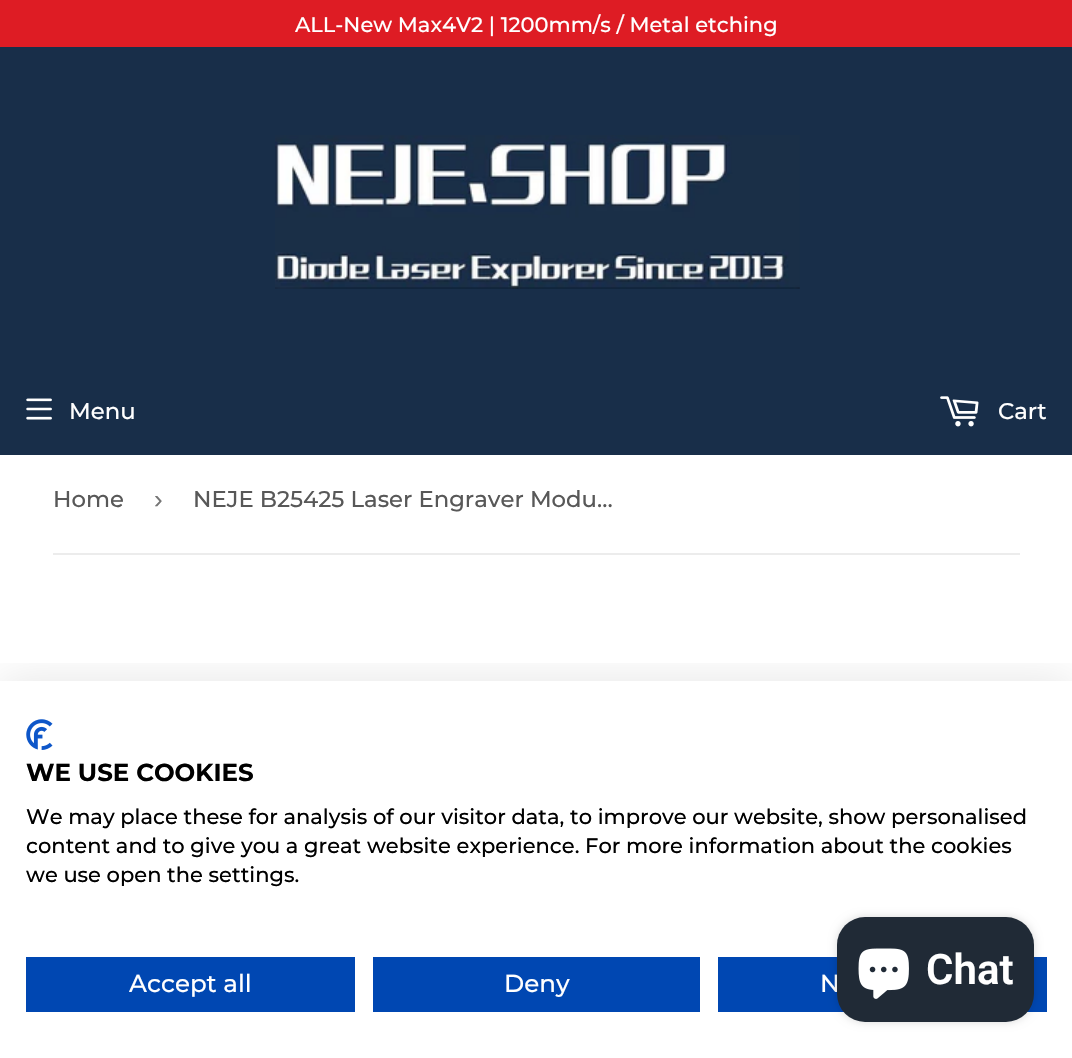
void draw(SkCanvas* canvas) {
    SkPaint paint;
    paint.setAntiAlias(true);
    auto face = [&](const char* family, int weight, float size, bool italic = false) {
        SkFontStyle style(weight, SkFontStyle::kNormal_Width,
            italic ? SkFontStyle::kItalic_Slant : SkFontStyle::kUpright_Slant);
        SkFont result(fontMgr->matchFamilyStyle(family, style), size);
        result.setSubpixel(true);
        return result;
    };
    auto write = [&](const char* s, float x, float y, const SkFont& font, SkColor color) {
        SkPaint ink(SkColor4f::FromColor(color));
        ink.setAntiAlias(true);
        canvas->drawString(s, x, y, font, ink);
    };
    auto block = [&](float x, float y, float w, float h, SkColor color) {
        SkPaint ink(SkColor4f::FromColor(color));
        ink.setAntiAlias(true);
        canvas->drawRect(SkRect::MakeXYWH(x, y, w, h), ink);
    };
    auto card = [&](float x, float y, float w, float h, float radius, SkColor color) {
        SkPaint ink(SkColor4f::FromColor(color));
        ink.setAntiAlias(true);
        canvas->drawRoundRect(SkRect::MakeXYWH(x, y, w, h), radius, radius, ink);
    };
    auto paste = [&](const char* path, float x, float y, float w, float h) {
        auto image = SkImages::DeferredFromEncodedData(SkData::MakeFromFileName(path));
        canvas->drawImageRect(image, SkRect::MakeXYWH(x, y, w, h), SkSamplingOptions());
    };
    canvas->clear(SK_ColorWHITE);
    block(0, 0, 1072, 47, SkColorSetRGB(222, 28, 36));
    auto kFont1 = face("Montserrat", 500, 21);
    write("ALL-New Max4V2 | 1200mm/s / Metal etching", 295, 32, kFont1, SK_ColorWHITE);
    block(0, 47, 1072, 408, SkColorSetRGB(24, 46, 73));
    paste("pic1.png", 275, 135, 525, 154);
    paste("pic2.png", 26, 398, 26, 22);
    auto kFont2 = face("Montserrat", 500, 22.75f);
    write("Menu", 69, 419, kFont2, SK_ColorWHITE);
    paste("pic3.png", 940, 396, 39, 31);
    write("Cart", 998, 419, kFont2, SK_ColorWHITE);
    block(53, 553, 967, 2, SkColorSetRGB(236, 236, 236));
    write("Home", 53, 507, kFont2, SkColorSetRGB(88, 88, 88));
    auto kFont3 = face("Liberation Sans", 400, 26);
    write("›", 154, 508, kFont3, SkColorSetRGB(118, 118, 118));
    write("NEJE B25425 Laser Engraver Modu…", 193, 507, kFont2, SkColorSetRGB(88, 88, 88));
    canvas->save();
    canvas->clipRect(SkRect::MakeXYWH(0, 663, 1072, 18));
    paint.setColor(SkColorSetARGB(26, 0, 0, 0));
    paint.setMaskFilter(SkMaskFilter::MakeBlur(kNormal_SkBlurStyle, 21));
    canvas->drawRect(SkRect::MakeXYWH(0, 681, 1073, 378), paint);
    paint.setMaskFilter(nullptr);
    canvas->restore();
    paste("pic4.png", 26, 719, 27, 31);
    auto kFont4 = face("Montserrat", 700, 24.5f);
    write("WE USE COOKIES", 26, 781, kFont4, SK_ColorBLACK);
    write("We may place these for analysis of our visitor data, to improve our website, show personalised", 26, 824, kFont1, SK_ColorBLACK);
    write("content and to give you a great website experience. For more information about the cookies", 26, 853, kFont1, SK_ColorBLACK);
    write("we use open the settings.", 26, 882, kFont1, SK_ColorBLACK);
    block(26, 957, 329, 55, SkColorSetRGB(0, 71, 178));
    auto kFont5 = face("Montserrat", 500, 24.5f);
    write("Accept all", 129, 992, kFont5, SK_ColorWHITE);
    block(373, 957, 327, 55, SkColorSetRGB(0, 71, 178));
    write("Deny", 504, 992, kFont5, SK_ColorWHITE);
    block(718, 957, 329, 55, SkColorSetRGB(0, 71, 178));
    write("N", 820, 992, kFont5, SK_ColorWHITE);
    paint.setColor(SkColorSetARGB(38, 0, 0, 0));
    paint.setMaskFilter(SkMaskFilter::MakeBlur(kNormal_SkBlurStyle, 4.5f));
    canvas->drawRoundRect(SkRect::MakeXYWH(837, 917, 197, 105), 28, 28, paint);
    paint.setMaskFilter(nullptr);
    card(837, 917, 197, 105, 28, SkColorSetRGB(32, 42, 54));
    paste("pic5.png", 858, 948, 51, 51);
    auto kFont6 = face("Roboto", 600, 42);
    write("Chat", 926, 984, kFont6, SK_ColorWHITE);
}
